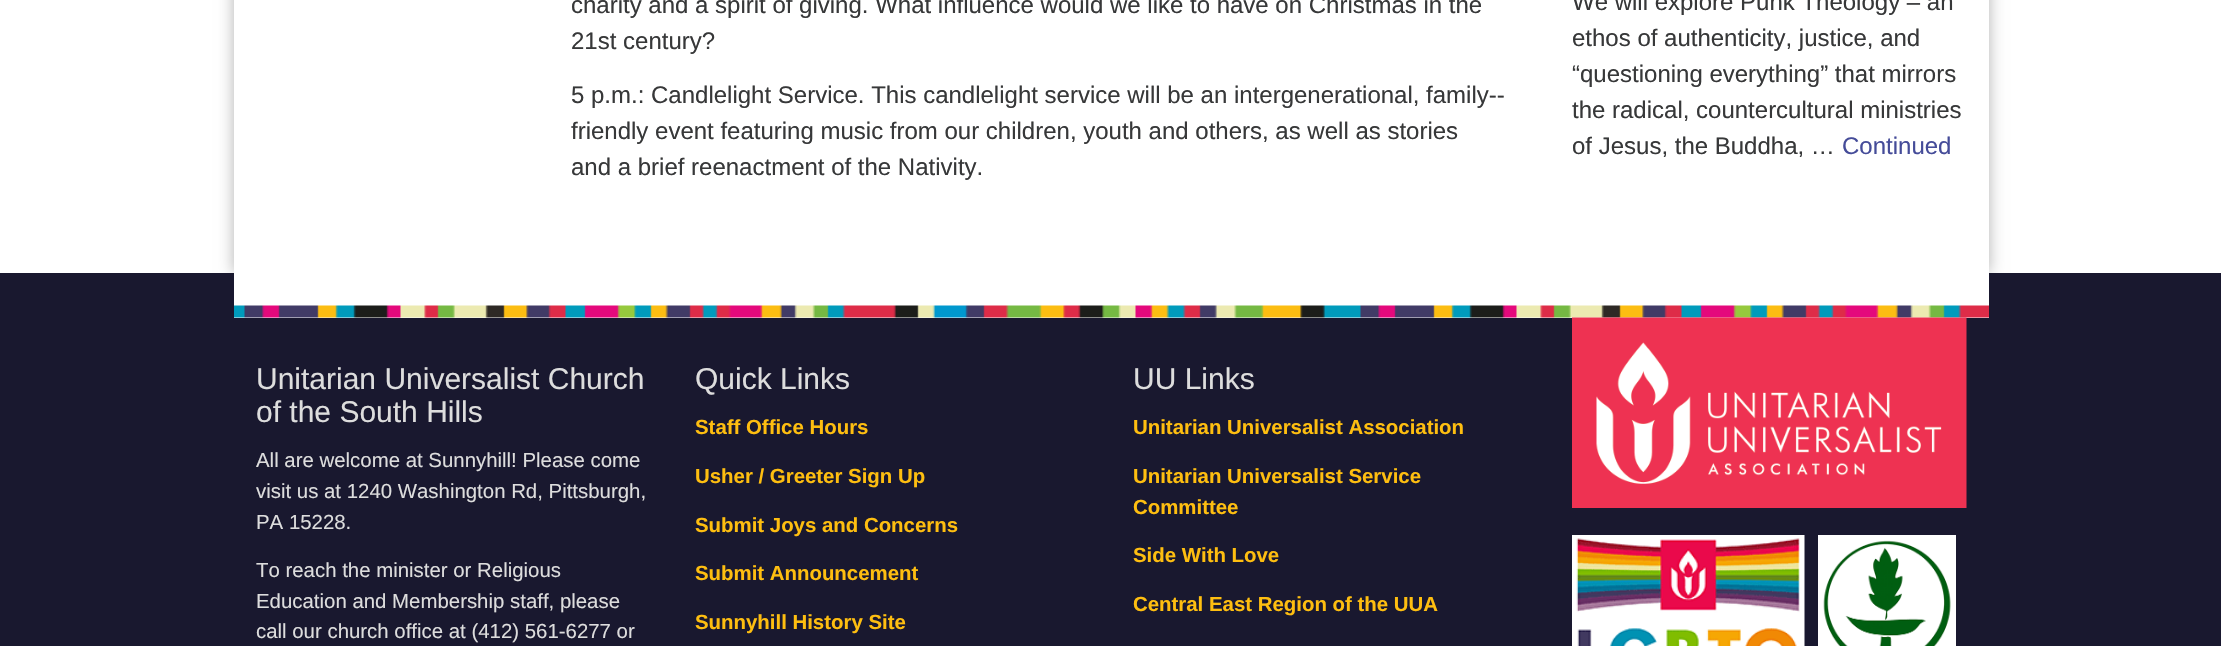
void draw(SkCanvas* canvas) {
    SkPaint paint;
    paint.setAntiAlias(true);
    auto face = [&](const char* family, int weight, float size, bool italic = false) {
        SkFontStyle style(weight, SkFontStyle::kNormal_Width,
            italic ? SkFontStyle::kItalic_Slant : SkFontStyle::kUpright_Slant);
        SkFont result(fontMgr->matchFamilyStyle(family, style), size);
        result.setSubpixel(true);
        return result;
    };
    auto write = [&](const char* s, float x, float y, const SkFont& font, SkColor color) {
        SkPaint ink(SkColor4f::FromColor(color));
        ink.setAntiAlias(true);
        canvas->drawString(s, x, y, font, ink);
    };
    auto block = [&](float x, float y, float w, float h, SkColor color) {
        SkPaint ink(SkColor4f::FromColor(color));
        ink.setAntiAlias(true);
        canvas->drawRect(SkRect::MakeXYWH(x, y, w, h), ink);
    };
    auto paste = [&](const char* path, float x, float y, float w, float h) {
        auto image = SkImages::DeferredFromEncodedData(SkData::MakeFromFileName(path));
        canvas->drawImageRect(image, SkRect::MakeXYWH(x, y, w, h), SkSamplingOptions());
    };
    canvas->clear(SK_ColorWHITE);
    canvas->save();
    canvas->clipPath(SkPathBuilder(SkPathFillType::kEvenOdd).moveTo(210, 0).lineTo(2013, 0).lineTo(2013, 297).lineTo(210, 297).close().moveTo(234, -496).lineTo(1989, -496).lineTo(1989, 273).lineTo(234, 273).close().detach(), true);
    paint.setColor(SkColorSetARGB(77, 0, 0, 0));
    paint.setMaskFilter(SkMaskFilter::MakeBlur(kNormal_SkBlurStyle, 7.5f));
    canvas->drawRect(SkRect::MakeXYWH(234, -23, 1755, 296), paint);
    paint.setMaskFilter(nullptr);
    canvas->restore();
    auto kFont1 = face("Liberation Sans", 400, 24);
    write("charity and a spirit of giving. What influence would we like to have on Christmas in the", 571, 13, kFont1, SkColorSetRGB(55, 56, 57));
    write("21st century?", 571, 49, kFont1, SkColorSetRGB(55, 56, 57));
    write("5 p.m.: Candlelight Service. This candlelight service will be an intergenerational, family--", 571, 103, kFont1, SkColorSetRGB(55, 56, 57));
    write("friendly event featuring music from our children, youth and others, as well as stories", 571, 139, kFont1, SkColorSetRGB(55, 56, 57));
    write("and a brief reenactment of the Nativity.", 571, 175, kFont1, SkColorSetRGB(55, 56, 57));
    write("We will explore Punk Theology – an", 1572, 10, kFont1, SkColorSetRGB(55, 56, 57));
    write("ethos of authenticity, justice, and", 1572, 46, kFont1, SkColorSetRGB(55, 56, 57));
    write("“questioning everything” that mirrors", 1572, 82, kFont1, SkColorSetRGB(55, 56, 57));
    write("the radical, countercultural ministries", 1572, 118, kFont1, SkColorSetRGB(55, 56, 57));
    write("of Jesus, the Buddha, …", 1572, 154, kFont1, SkColorSetRGB(55, 56, 57));
    write("Continued", 1842, 154, kFont1, SkColorSetRGB(69, 76, 153));
    block(0, 273, 2221, 373, SkColorSetRGB(25, 24, 47));
    block(234, 273, 1755, 45, SK_ColorWHITE);
    paste("pic1.png", 234, 305, 1755, 13);
    auto kFont2 = face("Liberation Sans", 400, 30);
    write("Unitarian Universalist Church", 256, 389, kFont2, SkColorSetRGB(221, 221, 221));
    write("of the South Hills", 256, 422, kFont2, SkColorSetRGB(221, 221, 221));
    auto kFont3 = face("Liberation Sans", 400, 20.4f);
    write("All are welcome at Sunnyhill! Please come", 256, 467, kFont3, SkColorSetRGB(221, 221, 221));
    write("visit us at 1240 Washington Rd, Pittsburgh,", 256, 498, kFont3, SkColorSetRGB(221, 221, 221));
    write("PA 15228.", 256, 529, kFont3, SkColorSetRGB(221, 221, 221));
    write("To reach the minister or Religious", 256, 577, kFont3, SkColorSetRGB(221, 221, 221));
    write("Education and Membership staff, please", 256, 608, kFont3, SkColorSetRGB(221, 221, 221));
    write("call our church office at (412) 561-6277 or", 256, 638, kFont3, SkColorSetRGB(221, 221, 221));
    write("Quick Links", 695, 389, kFont2, SkColorSetRGB(221, 221, 221));
    auto kFont4 = face("Liberation Sans", 700, 20.4f);
    write("Staff Office Hours", 695, 434, kFont4, SkColorSetRGB(254, 190, 16));
    write("Usher / Greeter Sign Up", 695, 483, kFont4, SkColorSetRGB(254, 190, 16));
    write("Submit Joys and Concerns", 695, 532, kFont4, SkColorSetRGB(254, 190, 16));
    write("Submit Announcement", 695, 580, kFont4, SkColorSetRGB(254, 190, 16));
    write("Sunnyhill History Site", 695, 629, kFont4, SkColorSetRGB(254, 190, 16));
    write("UU Links", 1133, 389, kFont2, SkColorSetRGB(221, 221, 221));
    write("Unitarian Universalist Association", 1133, 434, kFont4, SkColorSetRGB(254, 190, 16));
    write("Unitarian Universalist Service", 1133, 483, kFont4, SkColorSetRGB(254, 190, 16));
    write("Committee", 1133, 514, kFont4, SkColorSetRGB(254, 190, 16));
    write("Side With Love", 1133, 562, kFont4, SkColorSetRGB(254, 190, 16));
    write("Central East Region of the UUA", 1133, 611, kFont4, SkColorSetRGB(254, 190, 16));
    paste("pic2.png", 1572, 317, 395, 191);
    paste("pic3.png", 1572, 535, 233, 111);
    paste("pic4.png", 1818, 535, 138, 111);
}
